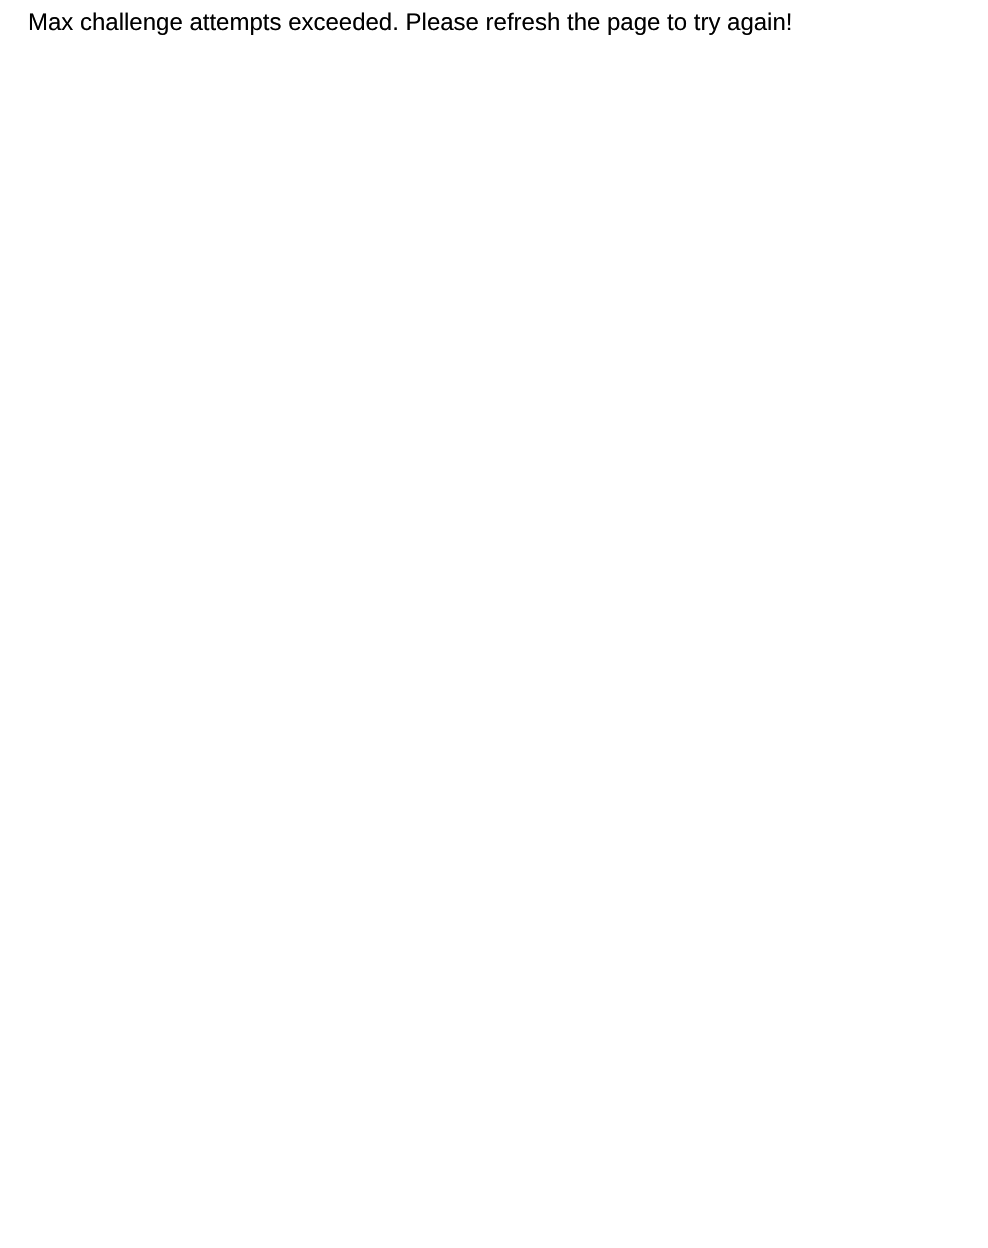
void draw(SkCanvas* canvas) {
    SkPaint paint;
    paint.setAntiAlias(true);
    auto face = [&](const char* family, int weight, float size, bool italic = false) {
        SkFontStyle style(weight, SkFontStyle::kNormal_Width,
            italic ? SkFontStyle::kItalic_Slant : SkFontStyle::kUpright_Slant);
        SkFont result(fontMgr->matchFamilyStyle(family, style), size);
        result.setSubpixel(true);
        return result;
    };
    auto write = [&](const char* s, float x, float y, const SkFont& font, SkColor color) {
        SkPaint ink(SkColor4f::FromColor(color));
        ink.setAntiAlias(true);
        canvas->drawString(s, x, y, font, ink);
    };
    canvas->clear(SK_ColorWHITE);
    auto kFont1 = face("Liberation Sans", 400, 24);
    write("Max challenge attempts exceeded. Please refresh the page to try again!", 28, 30, kFont1, SK_ColorBLACK);
}
